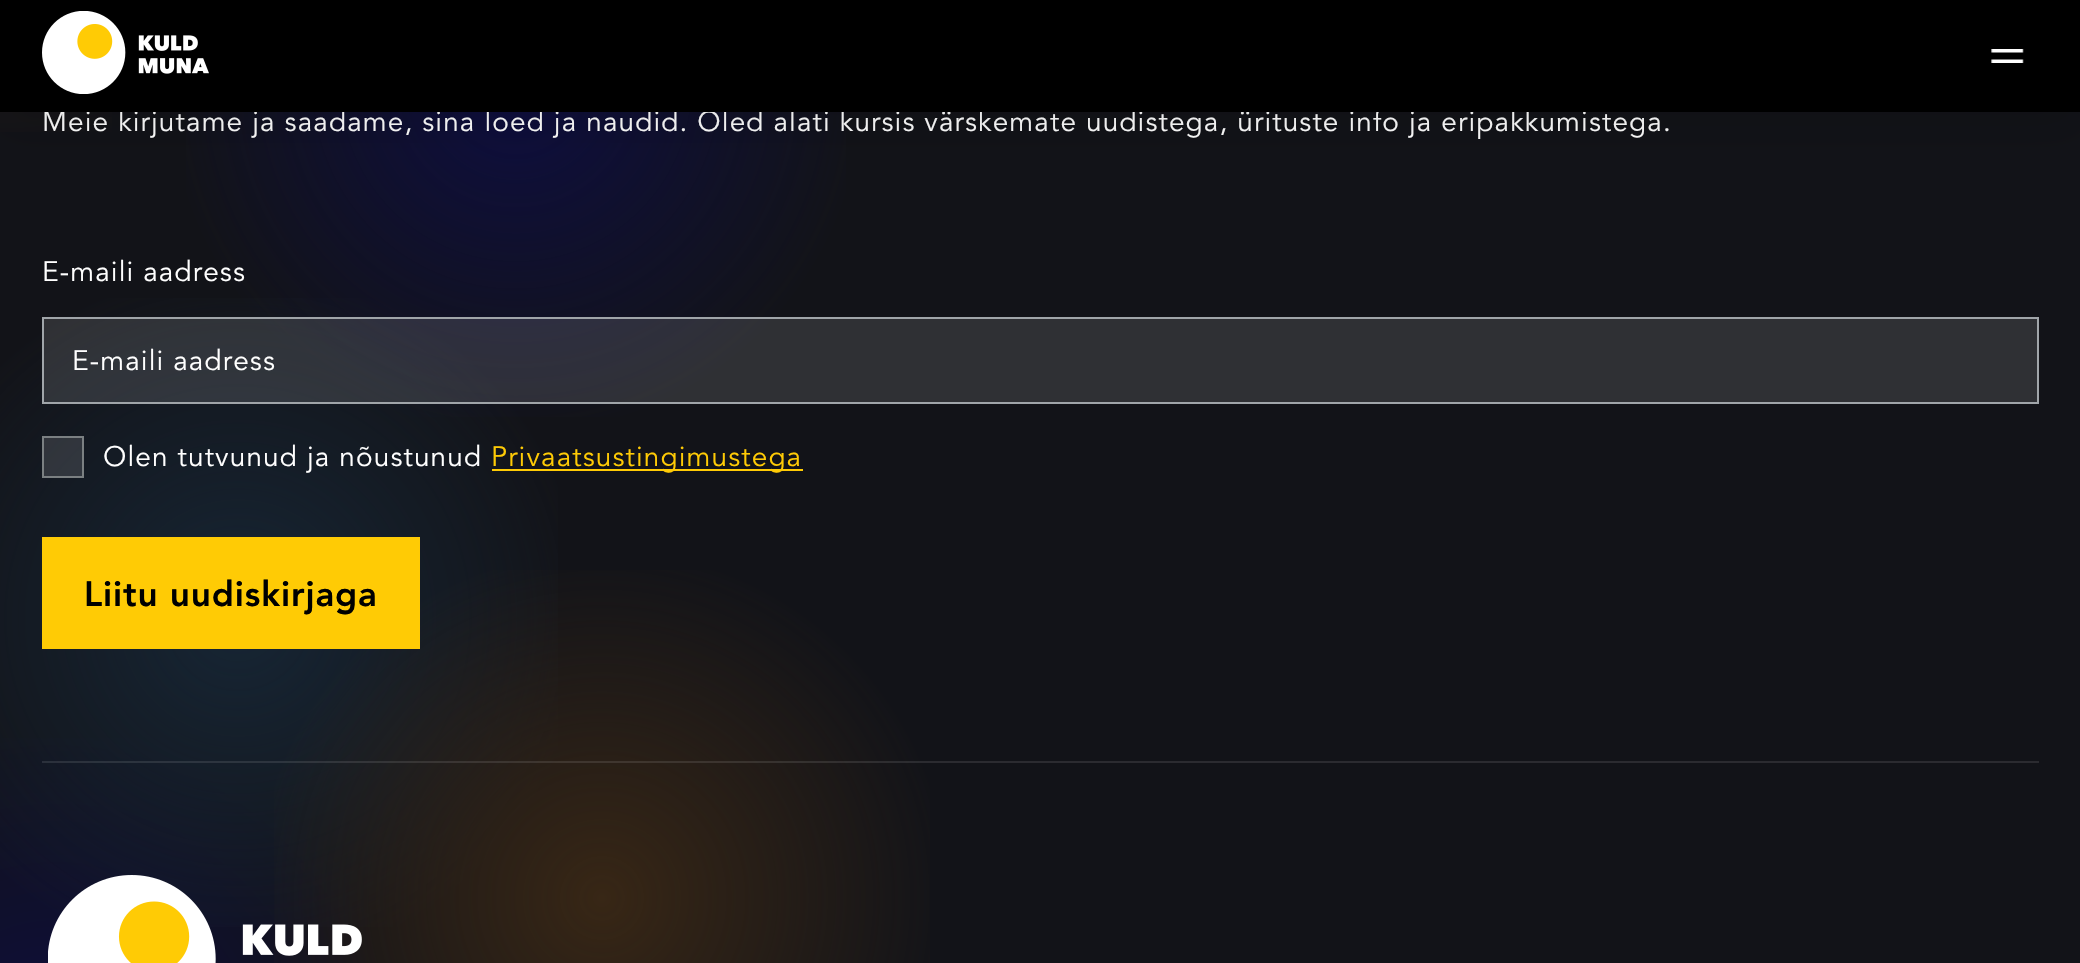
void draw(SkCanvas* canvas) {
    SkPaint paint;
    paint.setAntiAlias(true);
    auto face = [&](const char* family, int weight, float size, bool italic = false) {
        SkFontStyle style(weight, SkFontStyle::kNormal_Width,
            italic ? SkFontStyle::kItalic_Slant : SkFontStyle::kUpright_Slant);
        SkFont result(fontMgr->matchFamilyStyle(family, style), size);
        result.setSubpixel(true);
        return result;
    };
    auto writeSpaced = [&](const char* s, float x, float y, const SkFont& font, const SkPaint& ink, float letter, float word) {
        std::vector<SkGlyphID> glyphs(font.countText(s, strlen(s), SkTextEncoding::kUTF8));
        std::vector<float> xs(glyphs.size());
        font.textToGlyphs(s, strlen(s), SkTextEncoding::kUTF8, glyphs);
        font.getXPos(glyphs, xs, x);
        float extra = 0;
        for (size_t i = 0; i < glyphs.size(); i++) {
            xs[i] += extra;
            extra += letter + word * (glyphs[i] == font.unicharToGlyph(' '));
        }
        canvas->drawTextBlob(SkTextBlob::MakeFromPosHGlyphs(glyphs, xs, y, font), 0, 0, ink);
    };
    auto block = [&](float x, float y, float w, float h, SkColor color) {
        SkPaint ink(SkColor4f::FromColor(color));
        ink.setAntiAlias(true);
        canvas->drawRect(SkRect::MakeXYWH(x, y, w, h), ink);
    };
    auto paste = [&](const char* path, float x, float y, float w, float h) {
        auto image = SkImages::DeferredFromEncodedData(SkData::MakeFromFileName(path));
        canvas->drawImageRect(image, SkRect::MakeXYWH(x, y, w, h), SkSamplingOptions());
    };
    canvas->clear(SkColorSetRGB(18, 19, 24));
    {
        const SkColor colors[] = {SkColorSetRGB(55, 38, 21), SkColorSetRGB(18, 19, 24)};
        const float stops[] = {0, 1};
        paint.setShader(SkGradientShader::MakeRadial({0, -194}, 350, colors, stops, 2, SkTileMode::kClamp));
        paint.setAlpha(255);
    }
    canvas->drawRect(SkRect::MakeXYWH(0, 112, 112, 20), paint);
    {
        const SkColor colors[] = {SkColorSetRGB(13, 13, 63), SkColorSetRGB(18, 19, 24)};
        const float stops[] = {0, 1};
        paint.setShader(SkGradientShader::MakeRadial({56, 1066}, 350, colors, stops, 2, SkTileMode::kClamp));
        paint.setAlpha(255);
    }
    canvas->drawRect(SkRect::MakeXYWH(0, 738, 367, 225), paint);
    {
        const SkColor colors[] = {SkColorSetRGB(22, 37, 52), SkColorSetARGB(0, 22, 37, 52)};
        const float stops[] = {0, 1};
        paint.setShader(SkGradientShader::MakeRadial({238, 618}, 350, colors, stops, 2, SkTileMode::kClamp));
        paint.setAlpha(255);
    }
    canvas->drawRect(SkRect::MakeXYWH(0, 298, 558, 629), paint);
    {
        const SkColor colors[] = {SkColorSetRGB(13, 13, 63), SkColorSetARGB(0, 13, 13, 63)};
        const float stops[] = {0, 1};
        paint.setShader(SkGradientShader::MakeRadial({516, 86}, 350, colors, stops, 2, SkTileMode::kClamp));
        paint.setAlpha(255);
    }
    canvas->drawRect(SkRect::MakeXYWH(186, 112, 660, 305), paint);
    auto kFont1 = face("Avenir", 400, 28);
    paint.setShader(nullptr);
    paint.setColor(SK_ColorWHITE);
    writeSpaced("Meie kirjutame ja saadame, sina loed ja naudid. Oled alati kursis värskemate uudistega, ürituste info ja eripakkumistega.", 42, 131, kFont1, paint, 1.12f, 0);
    block(0, 0, 2080, 112, SK_ColorBLACK);
    paste("pic1.png", 42, 11, 167, 83);
    paste("pic2.png", 1991, 49, 33, 14);
    canvas->save();
    canvas->clipRect(SkRect::MakeXYWH(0, 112, 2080, 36));
    paint.setColor(SkColorSetARGB(26, 0, 0, 0));
    paint.setMaskFilter(SkMaskFilter::MakeBlur(kNormal_SkBlurStyle, 21));
    canvas->drawRect(SkRect::MakeXYWH(0, 18, 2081, 112), paint);
    paint.setMaskFilter(nullptr);
    canvas->restore();
    paint.setColor(SK_ColorWHITE);
    writeSpaced("E-maili aadress", 42, 281, kFont1, paint, 1.12f, 0);
    paint.setColor(SkColorSetARGB(31, 255, 255, 255));
    canvas->drawRect(SkRect::MakeXYWH(43, 318, 1995, 85), paint);
    paint.setStyle(SkPaint::kStroke_Style);
    paint.setStrokeWidth(2);
    paint.setColor(SkColorSetRGB(160, 165, 169));
    canvas->drawRect(SkRect::MakeXYWH(43, 318, 1995, 85), paint);
    paint.setStyle(SkPaint::kFill_Style);
    paint.setColor(SK_ColorWHITE);
    writeSpaced("E-maili aadress", 72, 370, kFont1, paint, 1.12f, 0);
    block(42, 436, 42, 42, SkColorSetARGB(31, 255, 255, 255));
    paint.setStyle(SkPaint::kStroke_Style);
    paint.setColor(SkColorSetARGB(235, 129, 133, 136));
    canvas->drawRect(SkRect::MakeXYWH(43, 437, 40, 40), paint);
    paint.setStyle(SkPaint::kFill_Style);
    paint.setColor(SK_ColorWHITE);
    writeSpaced("Olen tutvunud ja nõustunud", 103, 466, kFont1, paint, 1.12f, 0);
    paint.setColor(SkColorSetRGB(255, 203, 5));
    writeSpaced("Privaatsustingimustega", 491, 466, kFont1, paint, 1.12f, 0);
    block(492, 469, 311, 2, SkColorSetRGB(255, 203, 5));
    {
        const SkColor colors[] = {SkColorSetRGB(55, 38, 21), SkColorSetARGB(0, 55, 38, 21)};
        const float stops[] = {0, 1};
        paint.setShader(SkGradientShader::MakeRadial({602, 898}, 350, colors, stops, 2, SkTileMode::kClamp));
        paint.setAlpha(255);
    }
    canvas->drawRect(SkRect::MakeXYWH(274, 570, 656, 393), paint);
    block(42, 537, 378, 112, SkColorSetRGB(255, 203, 5));
    auto kFont2 = face("Avenir", 900, 35);
    paint.setShader(nullptr);
    paint.setColor(SK_ColorBLACK);
    writeSpaced("Liitu uudiskirjaga", 84, 606, kFont2, paint, 0.9f, 0);
    block(42, 761, 1997, 2, SkColorSetARGB(26, 255, 255, 255));
    paste("pic3.png", 48, 875, 314, 88);
}
